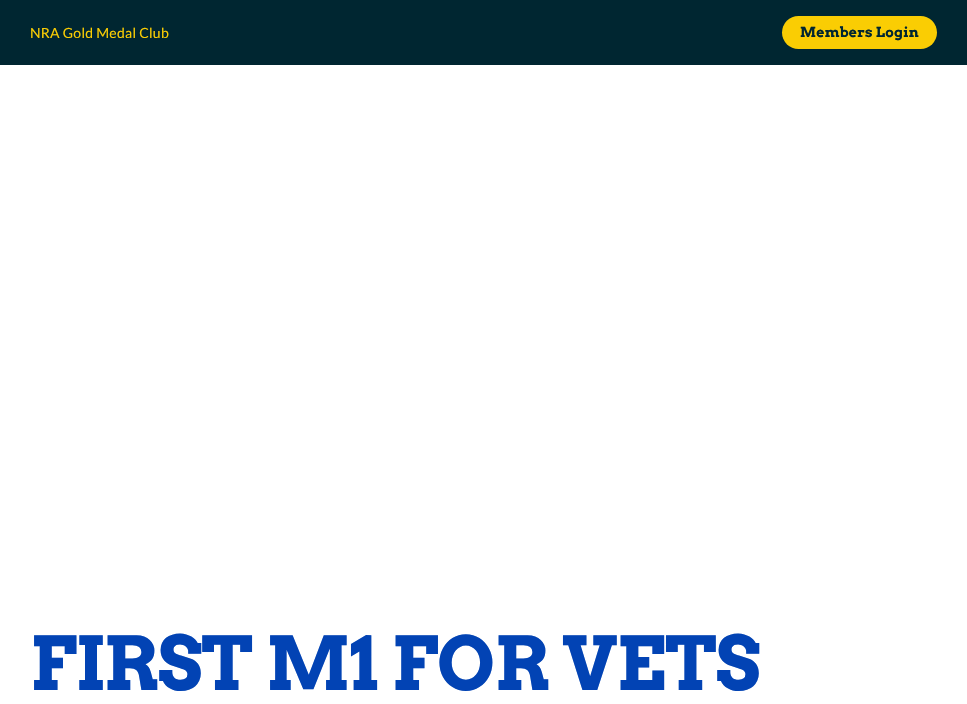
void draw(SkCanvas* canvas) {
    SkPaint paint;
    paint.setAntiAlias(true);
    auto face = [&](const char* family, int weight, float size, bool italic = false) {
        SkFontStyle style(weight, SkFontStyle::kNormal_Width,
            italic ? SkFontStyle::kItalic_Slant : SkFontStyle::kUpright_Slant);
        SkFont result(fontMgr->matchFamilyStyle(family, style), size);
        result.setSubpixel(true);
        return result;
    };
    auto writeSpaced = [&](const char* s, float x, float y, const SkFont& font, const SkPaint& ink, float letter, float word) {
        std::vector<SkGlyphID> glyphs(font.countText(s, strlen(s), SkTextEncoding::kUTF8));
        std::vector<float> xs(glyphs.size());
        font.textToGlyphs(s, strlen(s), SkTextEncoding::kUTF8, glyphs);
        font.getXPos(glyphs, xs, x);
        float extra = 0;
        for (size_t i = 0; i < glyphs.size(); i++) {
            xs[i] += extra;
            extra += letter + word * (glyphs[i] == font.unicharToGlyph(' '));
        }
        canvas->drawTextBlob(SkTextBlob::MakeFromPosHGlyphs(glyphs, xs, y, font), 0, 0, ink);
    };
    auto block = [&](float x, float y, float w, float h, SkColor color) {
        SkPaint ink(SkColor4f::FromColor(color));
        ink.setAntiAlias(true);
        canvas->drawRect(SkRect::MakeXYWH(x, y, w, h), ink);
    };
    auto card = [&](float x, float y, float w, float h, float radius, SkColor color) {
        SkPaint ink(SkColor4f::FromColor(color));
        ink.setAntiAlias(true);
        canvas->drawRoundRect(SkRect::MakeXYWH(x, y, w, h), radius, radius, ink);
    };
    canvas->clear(SK_ColorWHITE);
    block(0, 0, 967, 65, SkColorSetRGB(0, 38, 49));
    auto kFont1 = face("Lato", 400, 14);
    paint.setColor(SkColorSetRGB(250, 205, 3));
    writeSpaced("NRA Gold Medal Club", 30, 38, kFont1, paint, 0.25f, 0);
    card(782, 16, 155, 33, 16.5f, SkColorSetRGB(250, 205, 3));
    auto kFont2 = face("Arvo", 700, 14);
    paint.setColor(SkColorSetRGB(0, 38, 49));
    writeSpaced("Members Login", 800, 37, kFont2, paint, 0.25f, 0);
    auto kFont3 = face("Arvo", 700, 74);
    paint.setColor(SkColorSetRGB(2, 67, 180));
    writeSpaced("FIRST M1 FOR VETS", 30, 690, kFont3, paint, -1.1f, 0);
}
